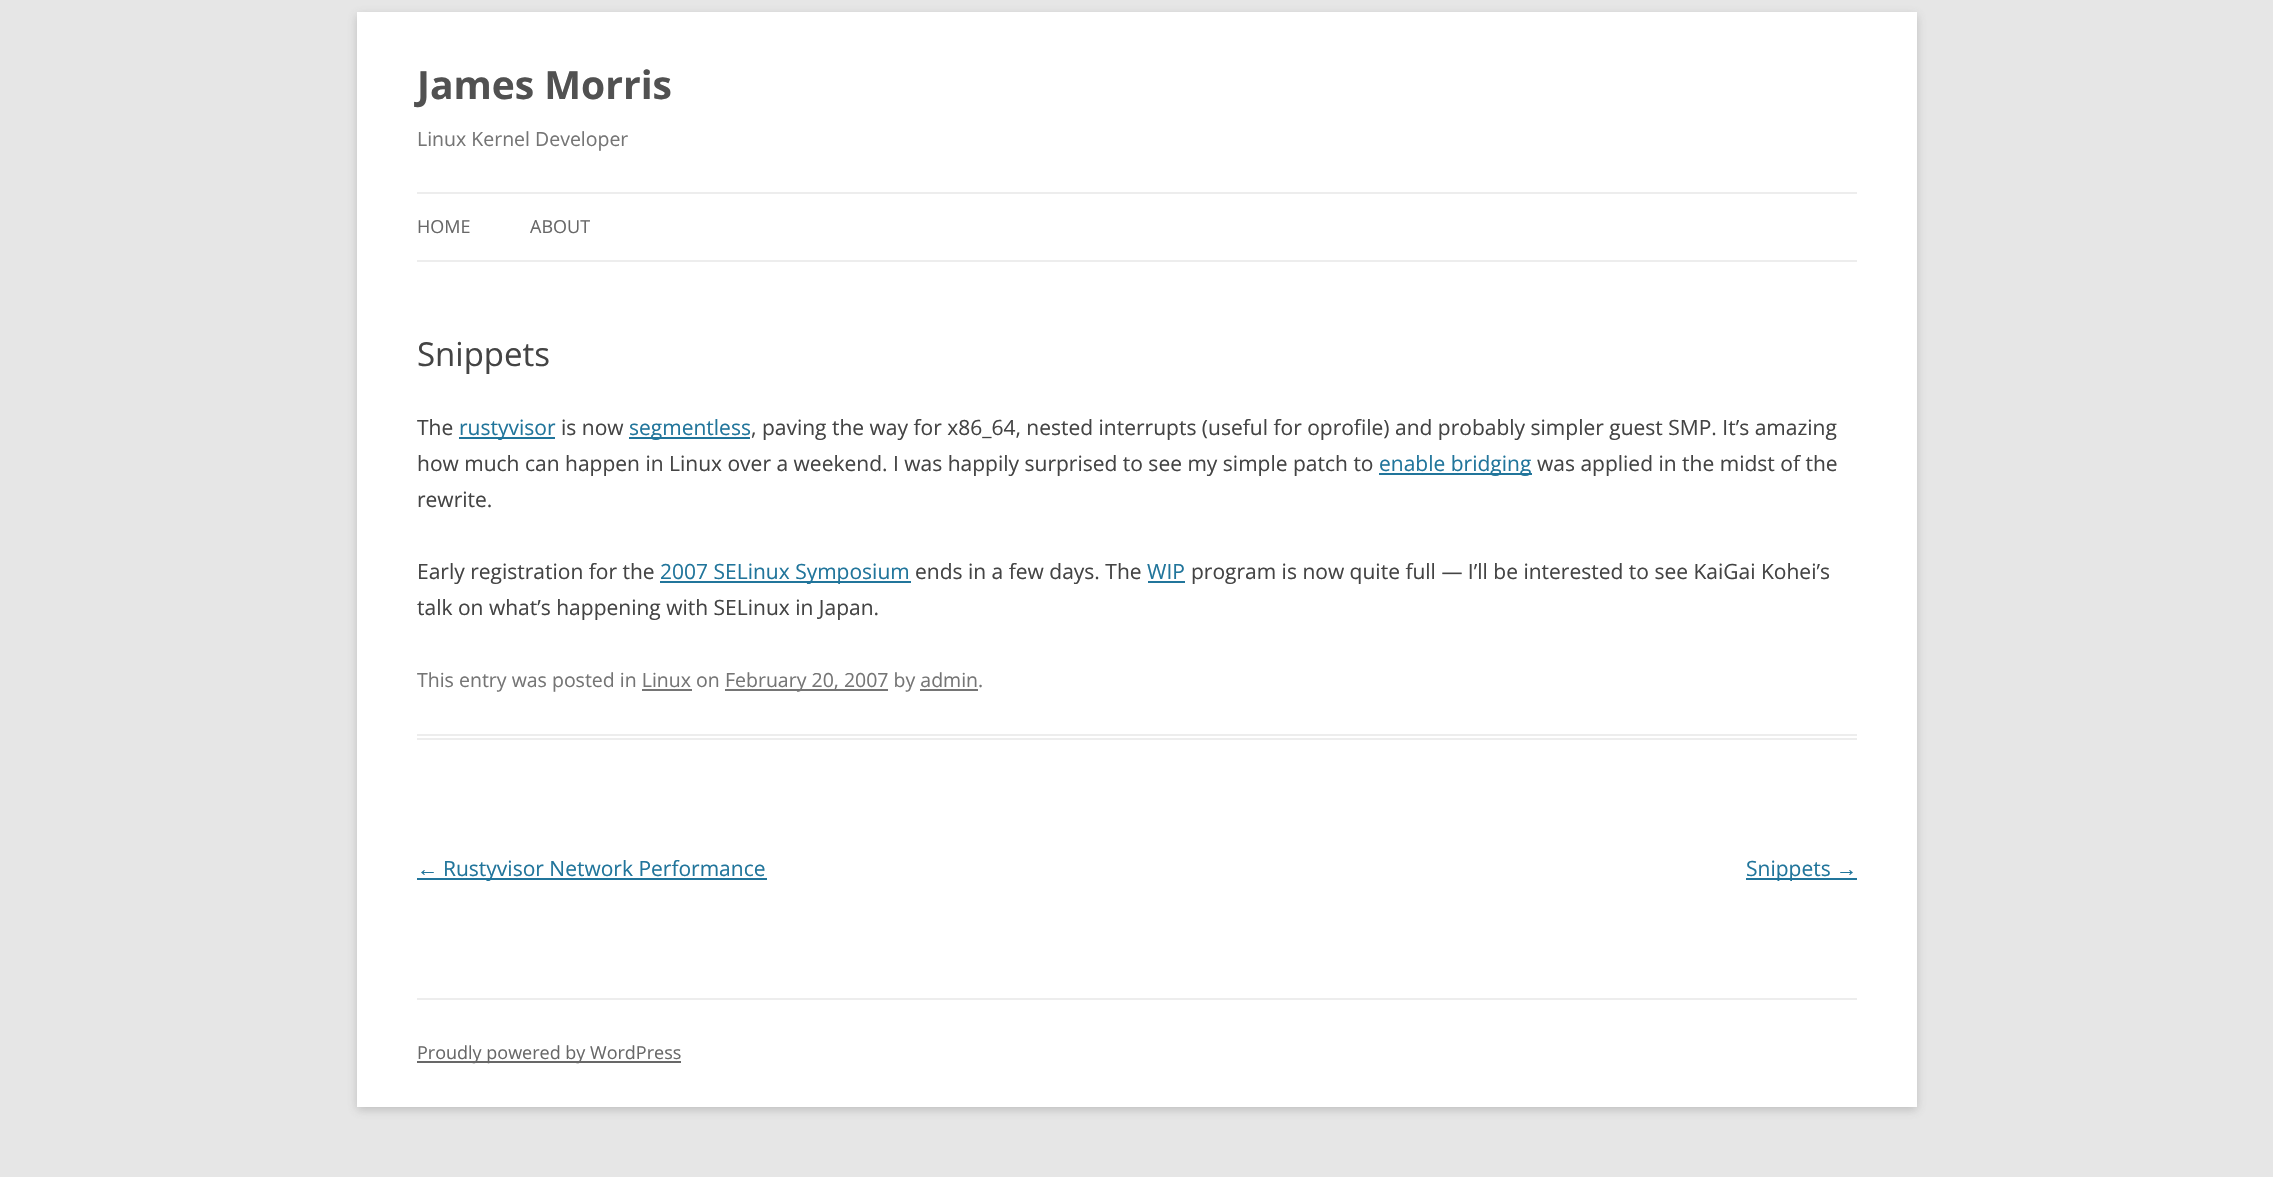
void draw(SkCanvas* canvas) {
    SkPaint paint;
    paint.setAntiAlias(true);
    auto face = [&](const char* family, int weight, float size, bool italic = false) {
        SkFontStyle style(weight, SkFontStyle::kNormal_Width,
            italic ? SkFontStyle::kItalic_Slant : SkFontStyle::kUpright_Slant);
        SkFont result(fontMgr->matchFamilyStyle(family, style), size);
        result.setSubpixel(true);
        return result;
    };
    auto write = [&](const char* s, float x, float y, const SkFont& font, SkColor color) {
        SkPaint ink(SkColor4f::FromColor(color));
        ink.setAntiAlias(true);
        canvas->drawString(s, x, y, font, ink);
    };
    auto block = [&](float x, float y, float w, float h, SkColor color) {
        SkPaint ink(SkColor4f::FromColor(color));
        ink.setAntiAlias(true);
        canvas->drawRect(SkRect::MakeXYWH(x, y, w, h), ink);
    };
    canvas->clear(SkColorSetRGB(230, 230, 230));
    paint.setColor(SkColorSetARGB(77, 100, 100, 100));
    paint.setMaskFilter(SkMaskFilter::MakeBlur(kNormal_SkBlurStyle, 4.5f));
    canvas->drawRect(SkRect::MakeXYWH(357, 15, 1560, 1095), paint);
    paint.setMaskFilter(nullptr);
    block(357, 12, 1560, 1095, SK_ColorWHITE);
    auto kFont1 = face("Open Sans", 700, 39);
    write("James Morris", 417, 99, kFont1, SkColorSetRGB(81, 81, 81));
    auto kFont2 = face("Open Sans", 400, 19.5f);
    write("Linux Kernel Developer", 417, 146, kFont2, SkColorSetRGB(117, 117, 117));
    block(417, 192, 1440, 2, SkColorSetRGB(237, 237, 237));
    block(417, 260, 1440, 2, SkColorSetRGB(237, 237, 237));
    auto kFont3 = face("Open Sans", 400, 18);
    write("HOME", 417, 233, kFont3, SkColorSetRGB(104, 104, 104));
    write("ABOUT", 530, 233, kFont3, SkColorSetRGB(104, 104, 104));
    block(417, 734, 1440, 2, SkColorSetRGB(237, 237, 237));
    block(417, 738, 1440, 2, SkColorSetRGB(237, 237, 237));
    auto kFont4 = face("Open Sans", 400, 33);
    write("Snippets", 417, 366, kFont4, SkColorSetRGB(68, 68, 68));
    auto kFont5 = face("Open Sans", 400, 21);
    write("The", 417, 435, kFont5, SkColorSetRGB(68, 68, 68));
    block(459, 437, 96, 2, SkColorSetRGB(33, 117, 155));
    write("rustyvisor", 459, 435, kFont5, SkColorSetRGB(33, 117, 155));
    write("is now", 561, 435, kFont5, SkColorSetRGB(68, 68, 68));
    block(629, 437, 121, 2, SkColorSetRGB(33, 117, 155));
    write("segmentless", 629, 435, kFont5, SkColorSetRGB(33, 117, 155));
    write(", paving the way for x86_64, nested interrupts (useful for oprofile) and probably simpler guest SMP. It’s amazing", 751, 435, kFont5, SkColorSetRGB(68, 68, 68));
    write("how much can happen in Linux over a weekend. I was happily surprised to see my simple patch to", 417, 471, kFont5, SkColorSetRGB(68, 68, 68));
    block(1379, 473, 153, 2, SkColorSetRGB(33, 117, 155));
    write("enable bridging", 1379, 471, kFont5, SkColorSetRGB(33, 117, 155));
    write("was applied in the midst of the", 1537, 471, kFont5, SkColorSetRGB(68, 68, 68));
    write("rewrite.", 417, 507, kFont5, SkColorSetRGB(68, 68, 68));
    write("Early registration for the", 417, 579, kFont5, SkColorSetRGB(68, 68, 68));
    block(660, 581, 251, 2, SkColorSetRGB(33, 117, 155));
    write("2007 SELinux Symposium", 660, 579, kFont5, SkColorSetRGB(33, 117, 155));
    write("ends in a few days. The", 915, 579, kFont5, SkColorSetRGB(68, 68, 68));
    write("WIP", 1147, 579, kFont5, SkColorSetRGB(33, 117, 155));
    block(1148, 581, 37, 2, SkColorSetRGB(33, 117, 155));
    write("program is now quite full — I’ll be interested to see KaiGai Kohei’s", 1191, 579, kFont5, SkColorSetRGB(68, 68, 68));
    write("talk on what’s happening with SELinux in Japan.", 417, 615, kFont5, SkColorSetRGB(68, 68, 68));
    write("This entry was posted in Linux on", 417, 687, kFont2, SkColorSetRGB(117, 117, 117));
    block(725, 689, 163, 2, SkColorSetRGB(117, 117, 117));
    write("February 20, 2007 by admin.", 725, 687, kFont2, SkColorSetRGB(117, 117, 117));
    block(642, 689, 50, 2, SkColorSetRGB(117, 117, 117));
    block(920, 689, 58, 2, SkColorSetRGB(117, 117, 117));
    auto kFont6 = face("Liberation Sans", 400, 21);
    write("←", 417, 876, kFont6, SkColorSetRGB(33, 117, 155));
    block(417, 878, 350, 2, SkColorSetRGB(33, 117, 155));
    write("Rustyvisor Network Performance", 443, 876, kFont5, SkColorSetRGB(33, 117, 155));
    block(1746, 878, 111, 2, SkColorSetRGB(33, 117, 155));
    write("Snippets", 1746, 876, kFont5, SkColorSetRGB(33, 117, 155));
    write("→", 1836, 876, kFont6, SkColorSetRGB(33, 117, 155));
    block(417, 998, 1440, 2, SkColorSetRGB(237, 237, 237));
    block(417, 1061, 264, 2, SkColorSetRGB(104, 104, 104));
    write("Proudly powered by WordPress", 417, 1059, kFont3, SkColorSetRGB(104, 104, 104));
}
